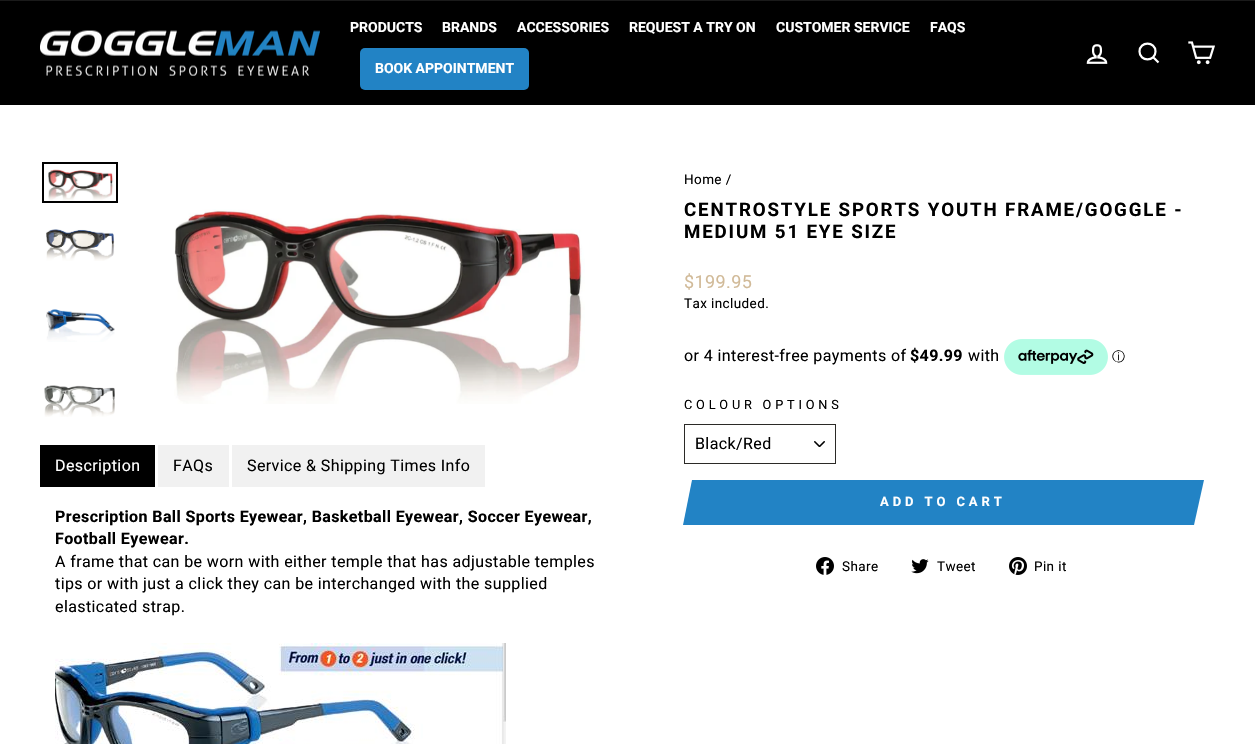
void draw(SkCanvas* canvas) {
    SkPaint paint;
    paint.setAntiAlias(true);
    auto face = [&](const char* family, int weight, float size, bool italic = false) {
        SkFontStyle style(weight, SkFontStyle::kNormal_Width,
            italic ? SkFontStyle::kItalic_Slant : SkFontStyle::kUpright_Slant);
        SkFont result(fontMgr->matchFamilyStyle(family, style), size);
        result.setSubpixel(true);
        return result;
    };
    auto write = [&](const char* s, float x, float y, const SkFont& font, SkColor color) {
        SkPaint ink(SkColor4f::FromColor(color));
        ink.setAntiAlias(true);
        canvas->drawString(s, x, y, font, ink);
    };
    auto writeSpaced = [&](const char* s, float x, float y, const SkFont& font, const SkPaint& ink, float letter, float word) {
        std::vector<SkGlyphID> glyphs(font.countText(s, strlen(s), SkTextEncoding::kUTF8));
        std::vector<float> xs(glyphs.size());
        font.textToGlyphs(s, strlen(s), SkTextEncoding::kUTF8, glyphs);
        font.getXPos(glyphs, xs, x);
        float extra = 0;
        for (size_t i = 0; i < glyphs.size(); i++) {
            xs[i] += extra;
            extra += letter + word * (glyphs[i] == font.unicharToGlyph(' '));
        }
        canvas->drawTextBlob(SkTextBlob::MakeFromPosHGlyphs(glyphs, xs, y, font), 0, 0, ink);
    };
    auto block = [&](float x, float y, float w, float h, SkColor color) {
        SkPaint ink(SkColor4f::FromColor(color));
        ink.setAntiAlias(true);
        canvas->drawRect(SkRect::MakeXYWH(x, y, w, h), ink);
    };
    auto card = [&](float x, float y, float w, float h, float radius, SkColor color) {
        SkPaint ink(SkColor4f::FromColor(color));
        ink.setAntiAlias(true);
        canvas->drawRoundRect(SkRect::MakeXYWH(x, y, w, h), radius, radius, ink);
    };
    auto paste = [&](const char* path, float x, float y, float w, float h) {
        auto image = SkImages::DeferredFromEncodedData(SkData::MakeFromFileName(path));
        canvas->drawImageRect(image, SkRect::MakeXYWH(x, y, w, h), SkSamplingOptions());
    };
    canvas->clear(SK_ColorWHITE);
    block(0, 1, 1255, 104, SK_ColorBLACK);
    block(0, 0, 1255, 1, SkColorSetRGB(26, 26, 26));
    paste("pic1.png", 40, 30, 280, 46);
    auto kFont1 = face("Roboto", 700, 14);
    write("PRODUCTS", 350, 32, kFont1, SK_ColorWHITE);
    write("BRANDS", 442, 32, kFont1, SK_ColorWHITE);
    write("ACCESSORIES", 517, 32, kFont1, SK_ColorWHITE);
    write("REQUEST A TRY ON", 629, 32, kFont1, SK_ColorWHITE);
    write("CUSTOMER SERVICE", 776, 32, kFont1, SK_ColorWHITE);
    write("FAQS", 930, 32, kFont1, SK_ColorWHITE);
    card(360, 48, 169, 42, 5, SkColorSetRGB(34, 131, 197));
    write("BOOK APPOINTMENT", 375, 73, kFont1, SK_ColorWHITE);
    paste("pic2.png", 1086, 44, 22, 20);
    paint.setStyle(SkPaint::kStroke_Style);
    paint.setStrokeWidth(2.2f);
    paint.setColor(SK_ColorWHITE);
    canvas->drawPath(SkPathBuilder().moveTo(1155.5f, 51.5f).cubicTo(1155.5f, 62, 1139.5f, 62, 1139.5f, 51.5f).cubicTo(1139.5f, 41, 1155.5f, 41, 1155.5f, 51.5f).close().moveTo(1158.5f, 62.5f).lineTo(1153.5f, 57.5f).detach(), paint);
    paste("pic3.png", 1188, 41, 27, 24);
    paste("pic4.png", 48, 169, 66, 32);
    paint.setStrokeWidth(2);
    paint.setColor(SK_ColorBLACK);
    canvas->drawRect(SkRect::MakeXYWH(43, 163, 74, 39), paint);
    paste("pic5.png", 46, 229, 69, 32);
    paste("pic6.png", 46, 309, 69, 33);
    paste("pic7.png", 44, 385, 71, 32);
    paste("pic8.png", 174, 209, 411, 195);
    block(40, 445, 115, 42, SK_ColorBLACK);
    auto kFont2 = face("Roboto", 400, 16);
    paint.setStyle(SkPaint::kFill_Style);
    paint.setColor(SK_ColorWHITE);
    writeSpaced("Description", 55, 471, kFont2, paint, 0.4f, 0);
    block(158, 445, 71, 42, SkColorSetRGB(241, 241, 241));
    paint.setColor(SK_ColorBLACK);
    writeSpaced("FAQs", 173, 471, kFont2, paint, 0.4f, 0);
    block(232, 445, 253, 42, SkColorSetRGB(241, 241, 241));
    writeSpaced("Service & Shipping Times Info", 247, 471, kFont2, paint, 0.4f, 0);
    auto kFont3 = face("Roboto", 700, 16);
    writeSpaced("Prescription Ball Sports Eyewear, Basketball Eyewear, Soccer Eyewear,", 55, 522, kFont3, paint, 0.4f, 0);
    writeSpaced("Football Eyewear.", 55, 544, kFont3, paint, 0.4f, 0);
    writeSpaced("A frame that can be worn with either temple that has adjustable temples", 55, 567, kFont2, paint, 0.4f, 0);
    writeSpaced("tips or with just a click they can be interchanged with the supplied", 55, 589, kFont2, paint, 0.4f, 0);
    writeSpaced("elasticated strap.", 55, 612, kFont2, paint, 0.4f, 0);
    paste("pic9.png", 55, 643, 451, 101);
    auto kFont4 = face("Roboto", 400, 13.5f);
    writeSpaced("Home /", 684, 184, kFont4, paint, 0.4f, 0);
    auto kFont5 = face("Roboto", 700, 18.7f);
    writeSpaced("CENTROSTYLE SPORTS YOUTH FRAME/GOGGLE -", 684, 216, kFont5, paint, 1.85f, 0);
    writeSpaced("MEDIUM 51 EYE SIZE", 684, 238, kFont5, paint, 1.85f, 0);
    auto kFont6 = face("Roboto", 400, 18);
    paint.setColor(SkColorSetRGB(209, 186, 152));
    writeSpaced("$199.95", 684, 288, kFont6, paint, 0.4f, 0);
    paint.setColor(SK_ColorBLACK);
    writeSpaced("Tax included.", 684, 308, kFont4, paint, 0.4f, 0);
    writeSpaced("or 4 interest-free payments of", 684, 361, kFont2, paint, 0.4f, 0);
    writeSpaced("$49.99", 910, 361, kFont3, paint, 0.4f, 0);
    writeSpaced("with", 968, 361, kFont2, paint, 0.4f, 0);
    paste("pic10.png", 1004, 339, 104, 36);
    auto kFont7 = face("WenQuanYi Zen Hei", 500, 13);
    write("ⓘ", 1112, 361, kFont7, SK_ColorBLACK);
    auto kFont8 = face("Roboto", 400, 12.75f);
    writeSpaced("COLOUR OPTIONS", 684, 409, kFont8, paint, 3.8f, 0);
    paste("pic11.png", 814, 441, 11, 6);
    paint.setStyle(SkPaint::kStroke_Style);
    paint.setStrokeWidth(1);
    paint.setColor(SkColorSetRGB(43, 42, 39));
    canvas->drawRect(SkRect::MakeXYWH(684.5f, 424.5f, 151, 39), paint);
    paint.setStyle(SkPaint::kFill_Style);
    paint.setColor(SK_ColorBLACK);
    writeSpaced("Black/Red", 695, 449, kFont2, paint, 0.4f, 0);
    block(703, 480, 481, 45, SkColorSetRGB(34, 131, 197));
    paint.setColor(SkColorSetRGB(34, 131, 197));
    canvas->drawPath(SkPathBuilder().moveTo(692, 480).lineTo(712, 480).lineTo(703, 525).lineTo(683, 525).close().detach(), paint);
    auto kFont9 = face("Roboto", 700, 13);
    paint.setColor(SK_ColorWHITE);
    writeSpaced("ADD TO CART", 880, 506, kFont9, paint, 3.9f, 0);
    paint.setColor(SkColorSetRGB(34, 131, 197));
    canvas->drawPath(SkPathBuilder().moveTo(1184, 480).lineTo(1204, 480).lineTo(1194, 525).lineTo(1174, 525).close().detach(), paint);
    paste("pic12.png", 816, 557, 18, 18);
    paint.setColor(SK_ColorBLACK);
    writeSpaced("Share", 842, 571, kFont4, paint, 0.4f, 0);
    paste("pic13.png", 911, 559, 18, 15);
    writeSpaced("Tweet", 937, 571, kFont4, paint, 0.4f, 0);
    paste("pic14.png", 1009, 557, 18, 18);
    writeSpaced("Pin it", 1034, 571, kFont4, paint, 0.4f, 0);
}
